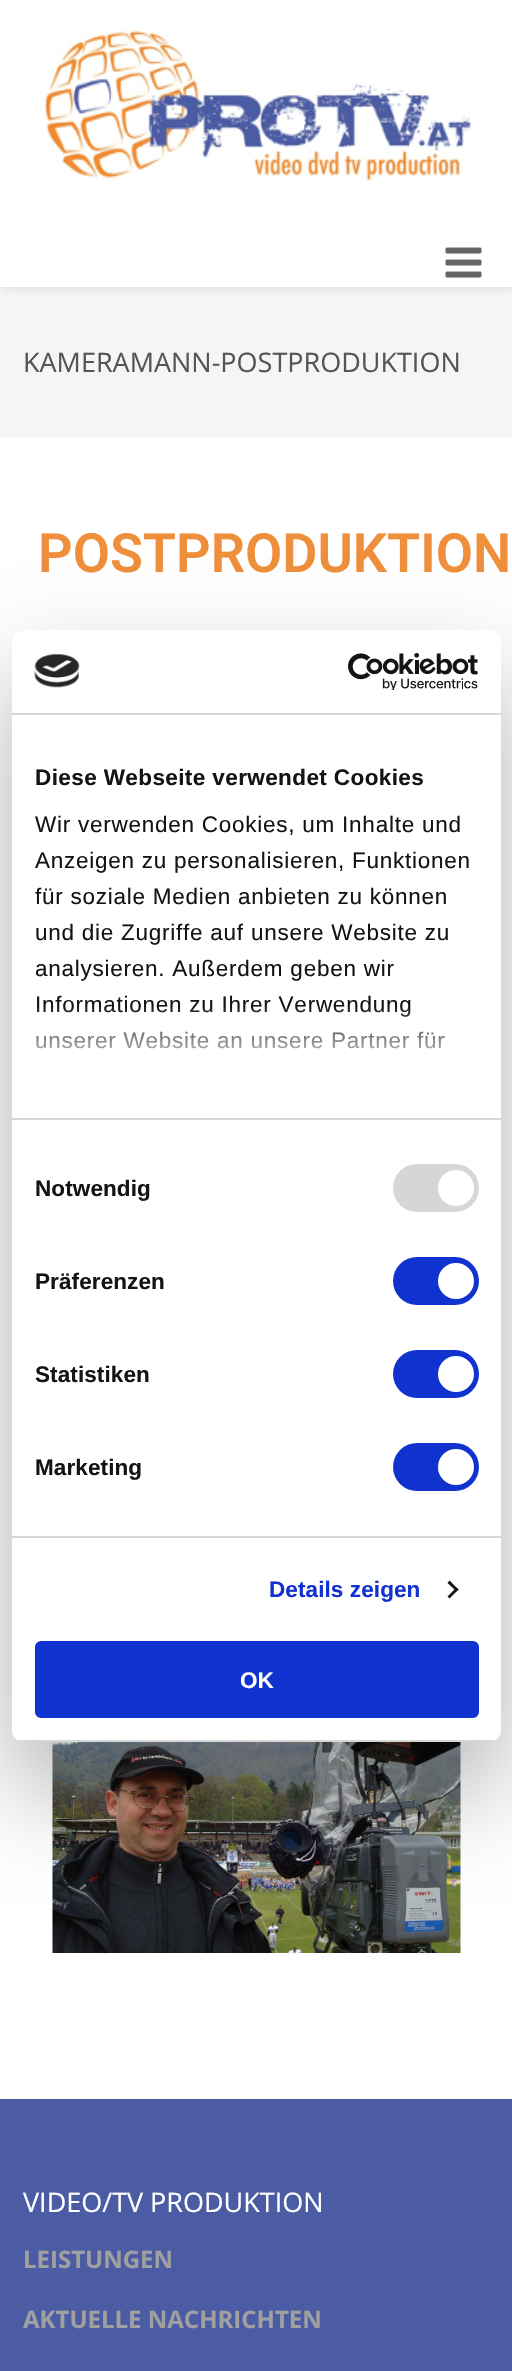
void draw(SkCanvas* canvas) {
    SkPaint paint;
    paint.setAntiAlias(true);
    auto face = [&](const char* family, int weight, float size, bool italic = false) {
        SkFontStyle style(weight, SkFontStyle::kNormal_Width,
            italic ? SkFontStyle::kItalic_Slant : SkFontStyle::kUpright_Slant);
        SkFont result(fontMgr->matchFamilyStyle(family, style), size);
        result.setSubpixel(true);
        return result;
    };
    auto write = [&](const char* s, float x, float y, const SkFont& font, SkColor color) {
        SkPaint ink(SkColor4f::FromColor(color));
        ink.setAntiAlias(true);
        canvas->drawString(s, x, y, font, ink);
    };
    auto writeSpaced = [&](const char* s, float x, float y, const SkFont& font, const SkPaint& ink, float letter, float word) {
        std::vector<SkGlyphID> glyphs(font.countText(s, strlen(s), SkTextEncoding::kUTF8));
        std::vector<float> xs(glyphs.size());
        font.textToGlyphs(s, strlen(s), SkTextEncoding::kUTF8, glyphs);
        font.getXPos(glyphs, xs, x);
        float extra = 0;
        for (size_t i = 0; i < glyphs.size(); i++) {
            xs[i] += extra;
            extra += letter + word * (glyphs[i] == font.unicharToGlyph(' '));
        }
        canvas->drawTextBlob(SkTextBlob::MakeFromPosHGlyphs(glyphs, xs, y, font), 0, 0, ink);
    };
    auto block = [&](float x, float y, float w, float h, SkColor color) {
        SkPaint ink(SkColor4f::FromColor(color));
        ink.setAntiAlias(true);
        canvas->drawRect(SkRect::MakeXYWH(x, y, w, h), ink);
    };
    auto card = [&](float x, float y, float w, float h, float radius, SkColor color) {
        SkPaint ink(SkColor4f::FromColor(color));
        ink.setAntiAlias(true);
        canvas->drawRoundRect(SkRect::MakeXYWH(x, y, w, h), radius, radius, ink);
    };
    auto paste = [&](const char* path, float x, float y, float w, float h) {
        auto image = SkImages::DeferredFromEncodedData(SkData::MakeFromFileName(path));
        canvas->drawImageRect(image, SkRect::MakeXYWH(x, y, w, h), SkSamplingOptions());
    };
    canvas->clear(SK_ColorWHITE);
    block(0, 287, 512, 150, SkColorSetRGB(245, 245, 245));
    paint.setColor(SkColorSetARGB(51, 100, 100, 100));
    paint.setMaskFilter(SkMaskFilter::MakeBlur(kNormal_SkBlurStyle, 4));
    canvas->drawRect(SkRect::MakeXYWH(2, 2, 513, 286), paint);
    paint.setMaskFilter(nullptr);
    block(0, 0, 512, 287, SK_ColorWHITE);
    paste("pic1.png", 44, 28, 427, 153);
    paste("pic2.png", 445, 247, 37, 31);
    auto kFont1 = face("Open Sans", 400, 27);
    write("KAMERAMANN-POSTPRODUKTION", 23, 372, kFont1, SkColorSetRGB(85, 85, 85));
    auto kFont2 = face("Roboto", 600, 54);
    write("POSTPRODUKTION", 38, 572, kFont2, SkColorSetRGB(239, 143, 59));
    paste("pic3.png", 52, 1742, 409, 211);
    block(0, 2099, 512, 272, SkColorSetRGB(75, 92, 164));
    write("VIDEO/TV PRODUKTION", 23, 2212, kFont1, SK_ColorWHITE);
    auto kFont3 = face("Open Sans", 700, 24);
    write("LEISTUNGEN", 23, 2268, kFont3, SkColorSetRGB(160, 160, 160));
    write("AKTUELLE NACHRICHTEN", 23, 2328, kFont3, SkColorSetRGB(160, 160, 160));
    paint.setColor(SkColorSetARGB(77, 0, 0, 0));
    paint.setMaskFilter(SkMaskFilter::MakeBlur(kNormal_SkBlurStyle, 51));
    canvas->drawRoundRect(SkRect::MakeXYWH(12, 678, 489, 1112), 12, 12, paint);
    paint.setMaskFilter(nullptr);
    card(12, 630, 489, 1112, 12, SK_ColorWHITE);
    block(12, 713, 489, 2, SkColorSetRGB(214, 214, 214));
    paste("pic4.png", 34, 654, 46, 34);
    paste("pic5.png", 348, 653, 130, 37);
    block(12, 1118, 489, 2, SkColorSetRGB(214, 214, 214));
    auto kFont4 = face("Liberation Sans", 700, 22.5f);
    paint.setColor(SkColorSetRGB(20, 20, 20));
    writeSpaced("Diese Webseite verwendet Cookies", 35, 785, kFont4, paint, 0.4f, 0);
    auto kFont5 = face("Liberation Sans", 400, 22.5f);
    writeSpaced("Wir verwenden Cookies, um Inhalte und", 35, 832, kFont5, paint, 0.75f, 0);
    writeSpaced("Anzeigen zu personalisieren, Funktionen", 35, 868, kFont5, paint, 0.75f, 0);
    writeSpaced("für soziale Medien anbieten zu können", 35, 904, kFont5, paint, 0.75f, 0);
    writeSpaced("und die Zugriffe auf unsere Website zu", 35, 940, kFont5, paint, 0.75f, 0);
    writeSpaced("analysieren. Außerdem geben wir", 35, 976, kFont5, paint, 0.75f, 0);
    writeSpaced("Informationen zu Ihrer Verwendung", 35, 1012, kFont5, paint, 0.75f, 0);
    writeSpaced("unserer Website an unsere Partner für", 35, 1048, kFont5, paint, 0.75f, 0);
    {
        const SkColor colors[] = {SK_ColorWHITE, SkColorSetARGB(204, 255, 255, 255), SkColorSetARGB(0, 255, 255, 255)};
        const float stops[] = {0, 0.5f, 1};
        const SkPoint ends[] = {{247, 1118}, {247, 1005}};
        paint.setShader(SkGradientShader::MakeLinear(ends, colors, stops, 3, SkTileMode::kClamp));
        paint.setAlpha(255);
    }
    canvas->drawRect(SkRect::MakeXYWH(35, 1007, 409, 42), paint);
    block(12, 1536, 489, 2, SkColorSetRGB(214, 214, 214));
    paint.setShader(nullptr);
    paint.setColor(SkColorSetRGB(20, 20, 20));
    writeSpaced("Notwendig", 35, 1196, kFont4, paint, 0.1f, 0);
    card(393, 1164, 86, 48, 24, SkColorSetRGB(214, 214, 214));
    paint.setColor(SK_ColorWHITE);
    canvas->drawCircle(456, 1188, 18, paint);
    paint.setColor(SkColorSetRGB(20, 20, 20));
    writeSpaced("Präferenzen", 35, 1289, kFont4, paint, 0.1f, 0);
    card(393, 1257, 86, 48, 24, SkColorSetRGB(16, 50, 207));
    paint.setColor(SK_ColorWHITE);
    canvas->drawCircle(456, 1281, 18, paint);
    paint.setColor(SkColorSetRGB(20, 20, 20));
    writeSpaced("Statistiken", 35, 1382, kFont4, paint, 0.1f, 0);
    card(393, 1350, 86, 48, 24, SkColorSetRGB(16, 50, 207));
    paint.setColor(SK_ColorWHITE);
    canvas->drawCircle(456, 1374, 18, paint);
    paint.setColor(SkColorSetRGB(20, 20, 20));
    writeSpaced("Marketing", 35, 1475, kFont4, paint, 0.1f, 0);
    card(393, 1443, 86, 48, 24, SkColorSetRGB(16, 50, 207));
    paint.setColor(SK_ColorWHITE);
    canvas->drawCircle(456, 1467, 18, paint);
    paint.setColor(SkColorSetRGB(16, 50, 207));
    writeSpaced("Details zeigen", 269, 1597, kFont4, paint, 0.1f, 0);
    paint.setColor(SkColorSetRGB(20, 20, 20));
    canvas->drawPath(SkPathBuilder().moveTo(449.5f, 1580.5f).lineTo(458.5f, 1589.5f).lineTo(456.5f, 1591.5f).lineTo(447.5f, 1583).close().detach(), paint);
    canvas->drawPath(SkPathBuilder().moveTo(456.5f, 1587.5f).lineTo(458.5f, 1589.5f).lineTo(449.5f, 1598.5f).lineTo(447.5f, 1596.5f).close().detach(), paint);
    canvas->save();
    canvas->clipPath(SkPathBuilder().moveTo(24, 630).lineTo(489, 630).cubicTo(495.5f, 630, 501, 635.5f, 501, 642).lineTo(501, 1730).cubicTo(501, 1736.5f, 495.5f, 1742, 489, 1742).lineTo(24, 1742).cubicTo(17.5f, 1742, 12, 1736.5f, 12, 1730).lineTo(12, 642).cubicTo(12, 635.5f, 17.5f, 630, 24, 630).close().detach(), true);
    block(12, 1740, 489, 2, SkColorSetRGB(214, 214, 214));
    canvas->restore();
    paint.setColor(SkColorSetRGB(16, 50, 207));
    canvas->drawRoundRect(SkRect::MakeXYWH(36.5f, 1642.5f, 441, 74), 4.5f, 4.5f, paint);
    paint.setStyle(SkPaint::kStroke_Style);
    paint.setStrokeWidth(3);
    canvas->drawRoundRect(SkRect::MakeXYWH(36.5f, 1642.5f, 441, 74), 4.5f, 4.5f, paint);
    write("OK", 240, 1688, kFont4, SK_ColorWHITE);
}
